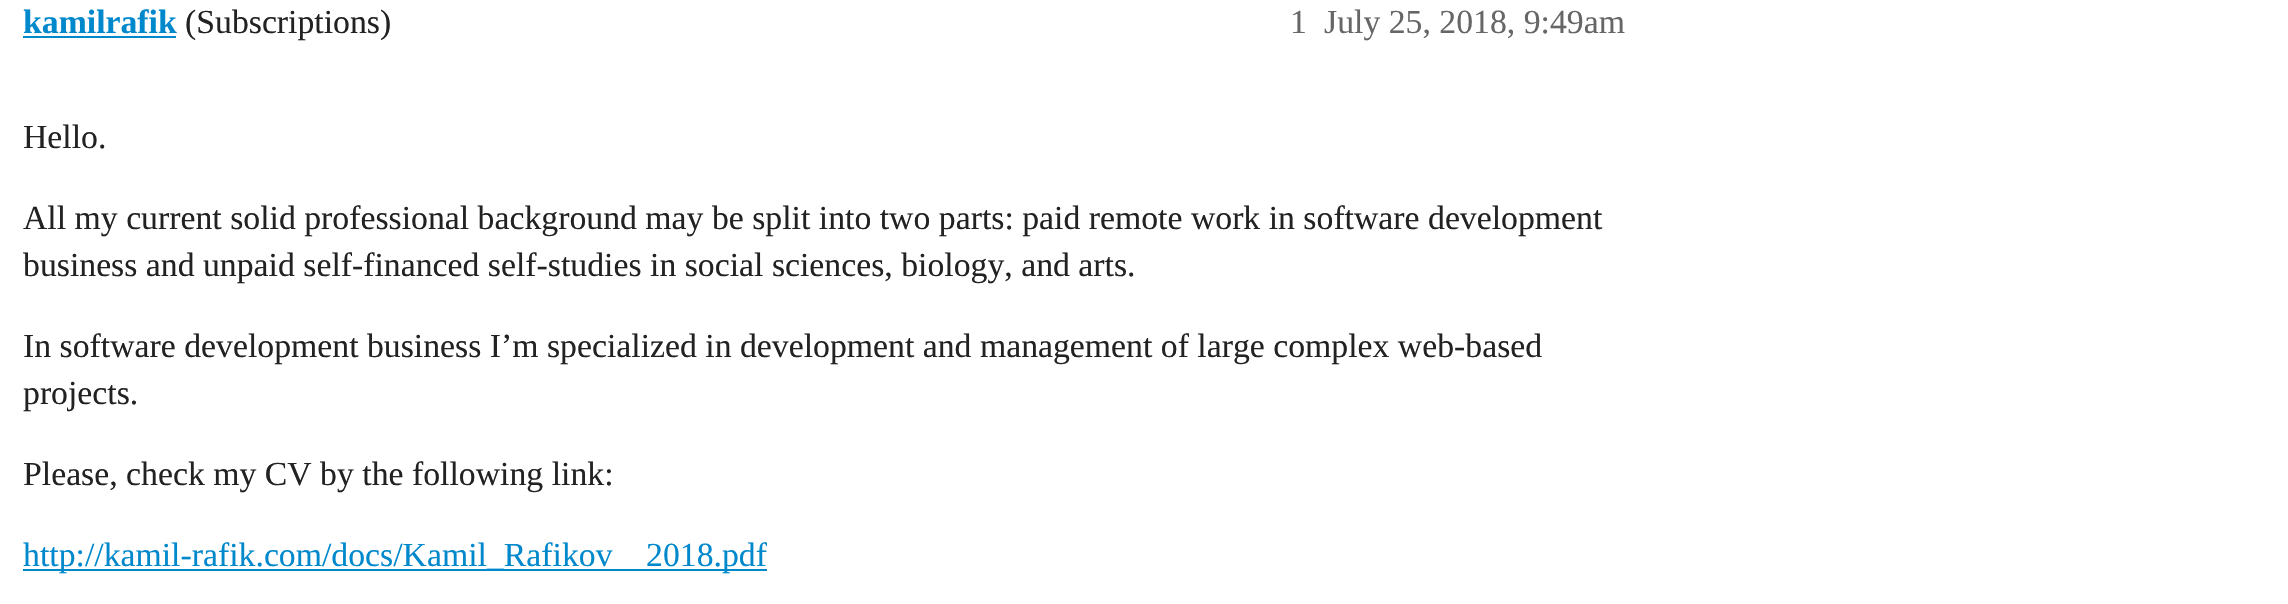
void draw(SkCanvas* canvas) {
    SkPaint paint;
    paint.setAntiAlias(true);
    auto face = [&](const char* family, int weight, float size, bool italic = false) {
        SkFontStyle style(weight, SkFontStyle::kNormal_Width,
            italic ? SkFontStyle::kItalic_Slant : SkFontStyle::kUpright_Slant);
        SkFont result(fontMgr->matchFamilyStyle(family, style), size);
        result.setSubpixel(true);
        return result;
    };
    auto write = [&](const char* s, float x, float y, const SkFont& font, SkColor color) {
        SkPaint ink(SkColor4f::FromColor(color));
        ink.setAntiAlias(true);
        canvas->drawString(s, x, y, font, ink);
    };
    auto block = [&](float x, float y, float w, float h, SkColor color) {
        SkPaint ink(SkColor4f::FromColor(color));
        ink.setAntiAlias(true);
        canvas->drawRect(SkRect::MakeXYWH(x, y, w, h), ink);
    };
    canvas->clear(SK_ColorWHITE);
    auto kFont1 = face("Liberation Serif", 700, 33.75f);
    write("kamilrafik", 23, 33, kFont1, SkColorSetRGB(0, 136, 204));
    block(23, 36, 153, 2, SkColorSetRGB(0, 136, 204));
    auto kFont2 = face("Liberation Serif", 400, 33.75f);
    write("(Subscriptions)", 185, 33, kFont2, SkColorSetRGB(34, 34, 34));
    write("1", 1290, 33, kFont2, SkColorSetRGB(102, 102, 102));
    write("July 25, 2018, 9:49am", 1324, 33, kFont2, SkColorSetRGB(102, 102, 102));
    write("Hello.", 23, 148, kFont2, SkColorSetRGB(34, 34, 34));
    write("All my current solid professional background may be split into two parts: paid remote work in software development", 23, 229, kFont2, SkColorSetRGB(34, 34, 34));
    write("business and unpaid self-financed self-studies in social sciences, biology, and arts.", 23, 276, kFont2, SkColorSetRGB(34, 34, 34));
    write("In software development business I’m specialized in development and management of large complex web-based", 23, 357, kFont2, SkColorSetRGB(34, 34, 34));
    write("projects.", 23, 404, kFont2, SkColorSetRGB(34, 34, 34));
    write("Please, check my CV by the following link:", 23, 485, kFont2, SkColorSetRGB(34, 34, 34));
    block(23, 569, 744, 2, SkColorSetRGB(0, 136, 204));
    write("http://kamil-rafik.com/docs/Kamil_Rafikov", 23, 566, kFont2, SkColorSetRGB(0, 136, 204));
    write("2018.pdf", 646, 566, kFont2, SkColorSetRGB(0, 136, 204));
}
